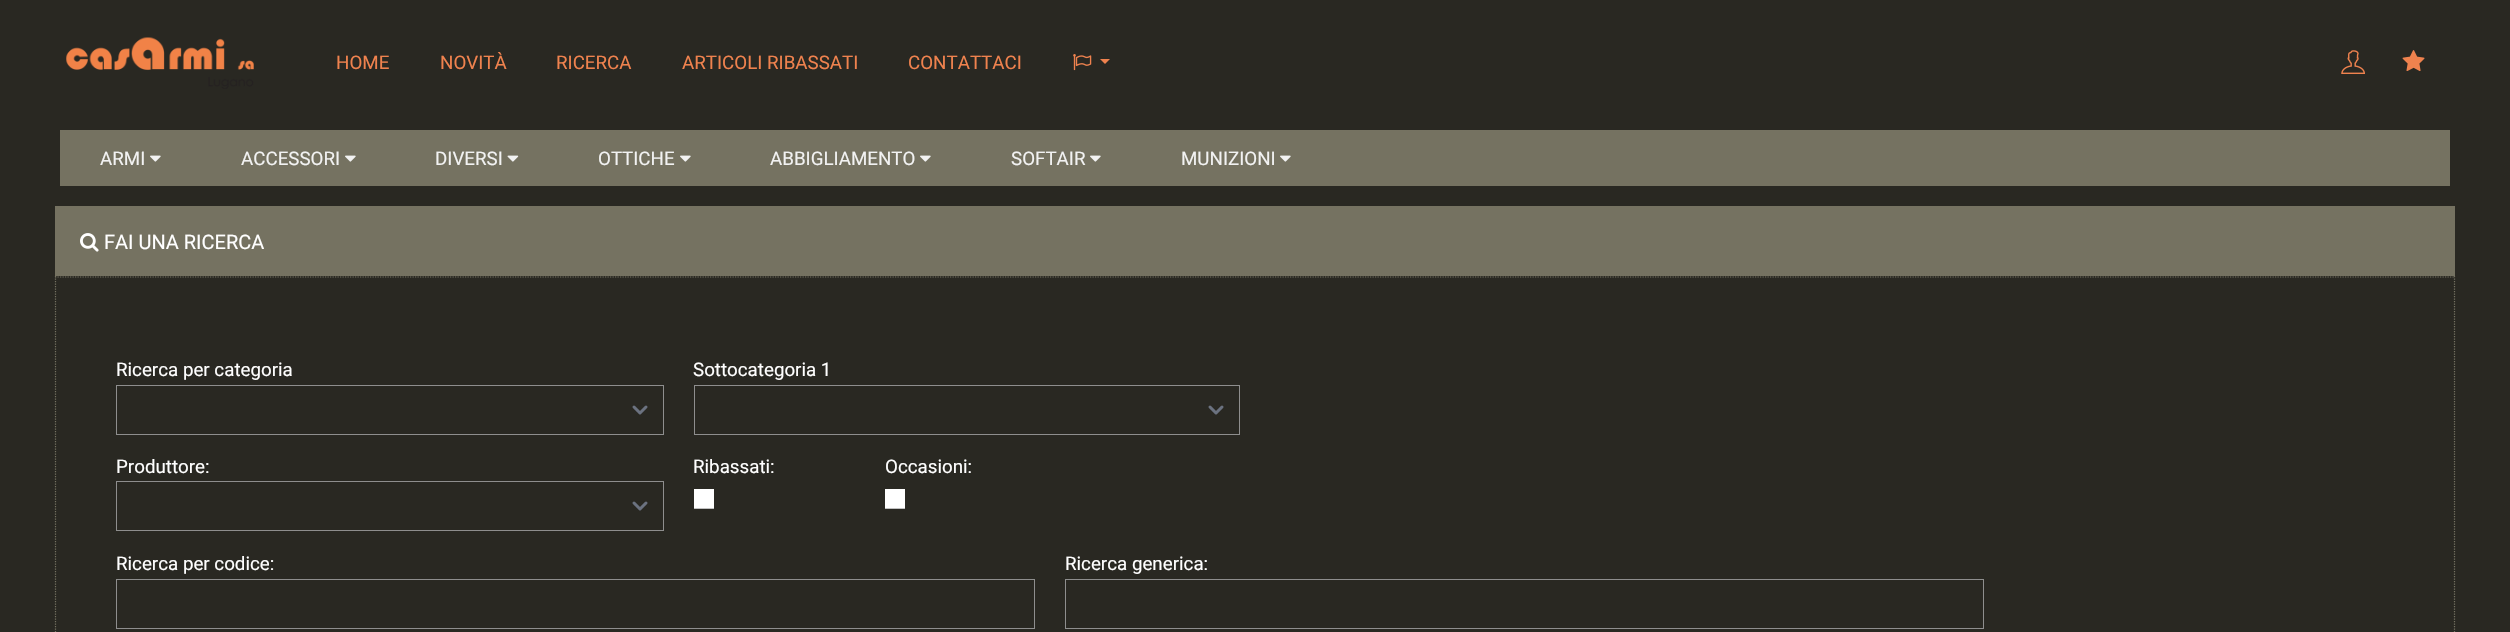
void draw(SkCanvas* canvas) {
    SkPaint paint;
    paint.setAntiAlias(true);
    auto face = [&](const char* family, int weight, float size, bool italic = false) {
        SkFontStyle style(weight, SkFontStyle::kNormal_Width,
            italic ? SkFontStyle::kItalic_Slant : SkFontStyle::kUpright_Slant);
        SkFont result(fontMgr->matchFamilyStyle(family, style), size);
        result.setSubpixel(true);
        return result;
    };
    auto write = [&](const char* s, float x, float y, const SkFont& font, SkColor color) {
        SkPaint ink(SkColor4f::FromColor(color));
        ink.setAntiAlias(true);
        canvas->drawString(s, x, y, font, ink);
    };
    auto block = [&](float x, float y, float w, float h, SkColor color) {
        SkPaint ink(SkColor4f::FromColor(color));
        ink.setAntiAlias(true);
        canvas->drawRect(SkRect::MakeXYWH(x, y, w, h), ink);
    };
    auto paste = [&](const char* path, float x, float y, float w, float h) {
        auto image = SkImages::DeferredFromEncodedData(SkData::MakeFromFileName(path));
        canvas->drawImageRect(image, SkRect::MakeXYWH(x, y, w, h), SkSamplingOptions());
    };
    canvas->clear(SkColorSetRGB(41, 40, 34));
    paste("pic1.png", 66, 37, 188, 52);
    auto kFont1 = face("Roboto", 400, 18.75f);
    write("HOME", 336, 69, kFont1, SkColorSetRGB(239, 130, 78));
    write("NOVITÀ", 440, 69, kFont1, SkColorSetRGB(239, 130, 78));
    write("RICERCA", 556, 69, kFont1, SkColorSetRGB(239, 130, 78));
    write("ARTICOLI RIBASSATI", 682, 69, kFont1, SkColorSetRGB(239, 130, 78));
    write("CONTATTACI", 908, 69, kFont1, SkColorSetRGB(239, 130, 78));
    paste("pic2.png", 1073, 54, 19, 17);
    paint.setColor(SkColorSetRGB(239, 130, 78));
    canvas->drawPath(SkPathBuilder().moveTo(1100, 59).lineTo(1110, 59).lineTo(1105, 64).close().detach(), paint);
    paste("pic3.png", 2341, 50, 24, 24);
    paste("pic4.png", 2402, 50, 23, 21);
    block(60, 130, 2390, 56, SkColorSetRGB(117, 114, 97));
    write("ARMI", 100, 165, kFont1, SkColorSetRGB(242, 242, 242));
    paste("pic5.png", 150, 155, 11, 7);
    write("ACCESSORI", 241, 165, kFont1, SkColorSetRGB(242, 242, 242));
    paste("pic5.png", 345, 155, 11, 7);
    write("DIVERSI", 435, 165, kFont1, SkColorSetRGB(242, 242, 242));
    paste("pic6.png", 507, 155, 12, 7);
    write("OTTICHE", 598, 165, kFont1, SkColorSetRGB(242, 242, 242));
    paste("pic5.png", 680, 155, 11, 7);
    write("ABBIGLIAMENTO", 770, 165, kFont1, SkColorSetRGB(242, 242, 242));
    paste("pic5.png", 920, 155, 11, 7);
    write("SOFTAIR", 1011, 165, kFont1, SkColorSetRGB(242, 242, 242));
    paste("pic5.png", 1090, 155, 11, 7);
    write("MUNIZIONI", 1181, 165, kFont1, SkColorSetRGB(242, 242, 242));
    paste("pic5.png", 1280, 155, 11, 7);
    block(55, 206, 2400, 70, SkColorSetRGB(117, 114, 97));
    paste("pic7.png", 80, 233, 19, 19);
    auto kFont2 = face("Roboto", 400, 20);
    write("FAI UNA RICERCA", 104, 249, kFont2, SK_ColorWHITE);
    paint.setStyle(SkPaint::kStroke_Style);
    paint.setStrokeWidth(1.2f);
    paint.setColor(SkColorSetRGB(117, 114, 97));
    paint.setPathEffect(SkDashPathEffect::Make({{1.25f, 1.25f}}, 0));
    canvas->drawPath(SkPathBuilder().moveTo(55, 277).lineTo(2455, 277).detach(), paint);
    paint.setPathEffect(nullptr);
    paint.setPathEffect(SkDashPathEffect::Make({{1.25f, 1.25f}}, 0));
    canvas->drawPath(SkPathBuilder().moveTo(2454.5f, 276).lineTo(2454.5f, 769).detach(), paint);
    paint.setPathEffect(nullptr);
    paint.setPathEffect(SkDashPathEffect::Make({{1.25f, 1.25f}}, 0));
    canvas->drawPath(SkPathBuilder().moveTo(55.5f, 276).lineTo(55.5f, 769).detach(), paint);
    paint.setPathEffect(nullptr);
    write("Ricerca per categoria", 116, 376, kFont1, SK_ColorWHITE);
    paint.setStrokeWidth(3);
    paint.setStrokeCap(SkPaint::kRound_Cap);
    paint.setStrokeJoin(SkPaint::kRound_Join);
    paint.setColor(SkColorSetRGB(107, 114, 128));
    canvas->drawPath(SkPathBuilder().moveTo(634, 407).lineTo(640, 413).lineTo(646, 407).detach(), paint);
    paint.setStrokeWidth(1);
    paint.setStrokeCap(SkPaint::kButt_Cap);
    paint.setStrokeJoin(SkPaint::kMiter_Join);
    paint.setColor(SkColorSetRGB(142, 142, 142));
    canvas->drawRect(SkRect::MakeXYWH(116.5f, 385.5f, 547, 49), paint);
    write("Sottocategoria 1", 693, 376, kFont1, SK_ColorWHITE);
    paint.setStrokeWidth(3);
    paint.setStrokeCap(SkPaint::kRound_Cap);
    paint.setStrokeJoin(SkPaint::kRound_Join);
    paint.setColor(SkColorSetRGB(107, 114, 128));
    canvas->drawPath(SkPathBuilder().moveTo(1210, 407).lineTo(1216, 413).lineTo(1222, 407).detach(), paint);
    paint.setStrokeWidth(1);
    paint.setStrokeCap(SkPaint::kButt_Cap);
    paint.setStrokeJoin(SkPaint::kMiter_Join);
    paint.setColor(SkColorSetRGB(142, 142, 142));
    canvas->drawRect(SkRect::MakeXYWH(694.5f, 385.5f, 545, 49), paint);
    write("Produttore:", 116, 473, kFont1, SK_ColorWHITE);
    paint.setStrokeWidth(3);
    paint.setStrokeCap(SkPaint::kRound_Cap);
    paint.setStrokeJoin(SkPaint::kRound_Join);
    paint.setColor(SkColorSetRGB(107, 114, 128));
    canvas->drawPath(SkPathBuilder().moveTo(634, 503).lineTo(640, 509).lineTo(646, 503).detach(), paint);
    paint.setStrokeWidth(1);
    paint.setStrokeCap(SkPaint::kButt_Cap);
    paint.setStrokeJoin(SkPaint::kMiter_Join);
    paint.setColor(SkColorSetRGB(142, 142, 142));
    canvas->drawRect(SkRect::MakeXYWH(116.5f, 481.5f, 547, 49), paint);
    write("Ribassati:", 693, 473, kFont1, SK_ColorWHITE);
    block(694, 489, 20, 19, SK_ColorWHITE);
    block(694, 508, 20, 1, SkColorSetRGB(193, 193, 193));
    write("Occasioni:", 885, 473, kFont1, SK_ColorWHITE);
    block(885, 489, 20, 19, SK_ColorWHITE);
    block(885, 508, 20, 1, SkColorSetRGB(193, 193, 193));
    write("Ricerca per codice:", 116, 570, kFont1, SK_ColorWHITE);
    canvas->drawRect(SkRect::MakeXYWH(116.5f, 579.5f, 918, 49), paint);
    write("Ricerca generica:", 1065, 570, kFont1, SK_ColorWHITE);
    canvas->drawRect(SkRect::MakeXYWH(1065.5f, 579.5f, 918, 49), paint);
}
